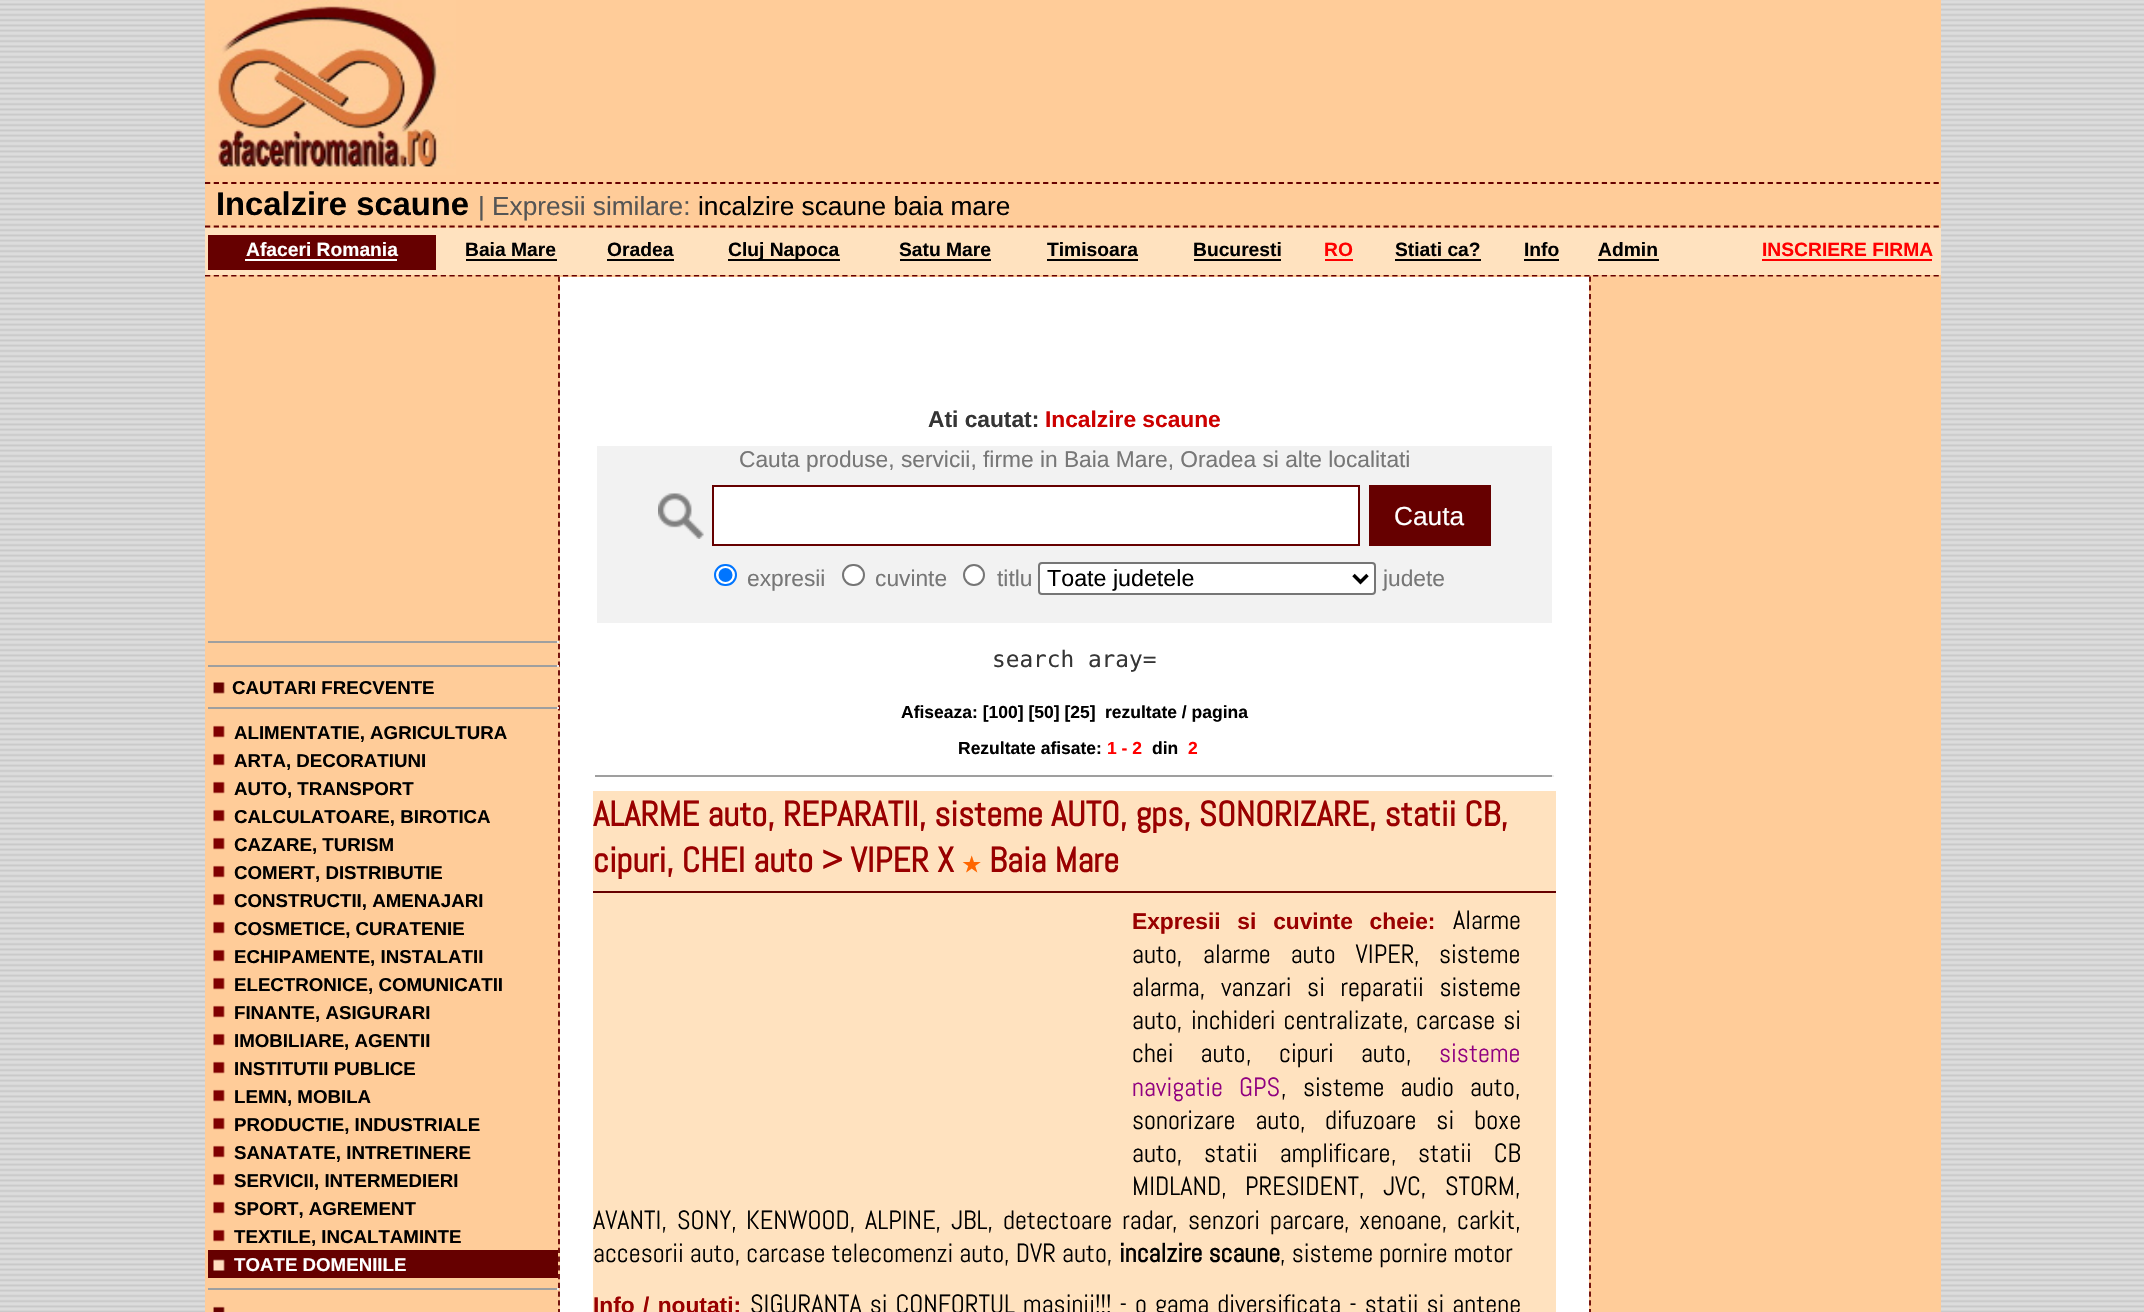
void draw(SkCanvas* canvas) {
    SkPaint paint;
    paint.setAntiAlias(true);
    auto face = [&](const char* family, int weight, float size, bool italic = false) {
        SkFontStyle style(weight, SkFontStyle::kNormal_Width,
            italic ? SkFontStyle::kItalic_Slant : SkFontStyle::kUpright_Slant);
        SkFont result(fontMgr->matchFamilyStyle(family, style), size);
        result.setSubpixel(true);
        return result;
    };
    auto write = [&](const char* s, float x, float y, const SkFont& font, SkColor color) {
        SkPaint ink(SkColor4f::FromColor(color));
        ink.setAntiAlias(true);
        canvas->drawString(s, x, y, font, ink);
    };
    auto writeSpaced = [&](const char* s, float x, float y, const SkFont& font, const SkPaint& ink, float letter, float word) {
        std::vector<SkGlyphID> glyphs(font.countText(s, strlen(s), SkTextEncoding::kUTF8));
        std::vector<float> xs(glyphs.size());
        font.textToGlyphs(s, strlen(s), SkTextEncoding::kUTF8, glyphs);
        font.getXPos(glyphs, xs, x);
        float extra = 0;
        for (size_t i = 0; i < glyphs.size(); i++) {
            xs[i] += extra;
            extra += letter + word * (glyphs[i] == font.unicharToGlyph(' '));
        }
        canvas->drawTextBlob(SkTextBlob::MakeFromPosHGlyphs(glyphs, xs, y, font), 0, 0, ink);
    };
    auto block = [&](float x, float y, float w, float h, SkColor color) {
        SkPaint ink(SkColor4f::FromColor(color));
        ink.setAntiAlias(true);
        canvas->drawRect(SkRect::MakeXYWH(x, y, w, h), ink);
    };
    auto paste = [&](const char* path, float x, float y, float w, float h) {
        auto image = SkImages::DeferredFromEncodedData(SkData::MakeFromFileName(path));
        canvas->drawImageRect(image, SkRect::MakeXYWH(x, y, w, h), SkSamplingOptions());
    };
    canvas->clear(SK_ColorWHITE);
    paste("pic1.png", 0, 0, 2144, 1312);
    block(560, 277, 1029, 1035, SK_ColorWHITE);
    block(205, 0, 1736, 228, SkColorSetRGB(255, 204, 153));
    paint.setStyle(SkPaint::kStroke_Style);
    paint.setStrokeWidth(1.8f);
    paint.setColor(SkColorSetRGB(102, 0, 0));
    paint.setPathEffect(SkDashPathEffect::Make({{5.25f, 3.48f}}, 0));
    canvas->drawPath(SkPathBuilder().moveTo(205, 183).lineTo(1941, 183).detach(), paint);
    paint.setPathEffect(nullptr);
    paste("pic2.png", 204, 0, 252, 175);
    paint.setPathEffect(SkDashPathEffect::Make({{5.25f, 3.48f}}, 0));
    canvas->drawPath(SkPathBuilder().moveTo(205, 226.5f).lineTo(1941, 226.5f).detach(), paint);
    paint.setPathEffect(nullptr);
    auto kFont1 = face("Liberation Sans", 700, 32.75f);
    write("Incalzire scaune", 216, 215, kFont1, SK_ColorBLACK);
    auto kFont2 = face("Liberation Sans", 400, 26.25f);
    write("| Expresii similare:", 478, 215, kFont2, SkColorSetRGB(85, 85, 85));
    write("incalzire scaune baia mare", 698, 215, kFont2, SK_ColorBLACK);
    block(205, 275, 1736, 2, SkColorSetRGB(255, 204, 153));
    paint.setPathEffect(SkDashPathEffect::Make({{5.25f, 3.48f}}, 0));
    canvas->drawPath(SkPathBuilder().moveTo(205, 275.5f).lineTo(1941, 275.5f).detach(), paint);
    paint.setPathEffect(nullptr);
    block(205, 228, 1736, 47, SkColorSetRGB(255, 226, 191));
    block(208, 235, 228, 35, SkColorSetRGB(102, 0, 0));
    auto kFont3 = face("Liberation Sans", 700, 19.25f);
    write("Afaceri Romania", 246, 256, kFont3, SK_ColorWHITE);
    block(245, 259, 152, 2, SK_ColorWHITE);
    write("Baia Mare", 465, 256, kFont3, SK_ColorBLACK);
    block(466, 259, 91, 2, SK_ColorBLACK);
    write("Oradea", 607, 256, kFont3, SK_ColorBLACK);
    block(607, 259, 67, 2, SK_ColorBLACK);
    block(728, 259, 112, 2, SK_ColorBLACK);
    write("Cluj Napoca", 728, 256, kFont3, SK_ColorBLACK);
    write("Satu Mare", 899, 256, kFont3, SK_ColorBLACK);
    block(900, 259, 91, 2, SK_ColorBLACK);
    write("Timisoara", 1047, 256, kFont3, SK_ColorBLACK);
    block(1047, 259, 91, 2, SK_ColorBLACK);
    write("Bucuresti", 1193, 256, kFont3, SK_ColorBLACK);
    block(1194, 259, 87, 2, SK_ColorBLACK);
    write("RO", 1324, 256, kFont3, SkColorSetRGB(255, 0, 0));
    block(1325, 259, 28, 2, SkColorSetRGB(255, 0, 0));
    write("Stiati ca?", 1395, 256, kFont3, SK_ColorBLACK);
    block(1395, 259, 86, 2, SK_ColorBLACK);
    write("Info", 1524, 256, kFont3, SK_ColorBLACK);
    block(1524, 259, 35, 2, SK_ColorBLACK);
    write("Admin", 1598, 256, kFont3, SK_ColorBLACK);
    block(1598, 259, 61, 2, SK_ColorBLACK);
    write("INSCRIERE FIRMA", 1762, 256, kFont3, SkColorSetRGB(255, 0, 0));
    block(1762, 259, 170, 2, SkColorSetRGB(255, 0, 0));
    block(205, 277, 355, 1035, SkColorSetRGB(255, 204, 153));
    paint.setPathEffect(SkDashPathEffect::Make({{5.25f, 3.5f}}, 0));
    canvas->drawPath(SkPathBuilder().moveTo(559, 276.5f).lineTo(559, 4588.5f).detach(), paint);
    paint.setPathEffect(nullptr);
    block(208, 641, 350, 2, SkColorSetRGB(159, 159, 159));
    block(557, 641, 2, 2, SkColorSetRGB(238, 238, 238));
    block(208, 665, 350, 2, SkColorSetRGB(159, 159, 159));
    block(557, 665, 2, 2, SkColorSetRGB(238, 238, 238));
    paste("pic3.png", 213, 682, 12, 12);
    auto kFont4 = face("Liberation Sans", 700, 18.7f);
    write("CAUTARI FRECVENTE", 232, 694, kFont4, SK_ColorBLACK);
    block(208, 707, 350, 2, SkColorSetRGB(159, 159, 159));
    block(557, 707, 2, 2, SkColorSetRGB(238, 238, 238));
    paste("pic4.png", 213, 725, 12, 13);
    write("ALIMENTATIE, AGRICULTURA", 234, 739, kFont4, SK_ColorBLACK);
    paste("pic4.png", 213, 753, 12, 13);
    write("ARTA, DECORATIUNI", 234, 767, kFont4, SK_ColorBLACK);
    paste("pic4.png", 213, 781, 12, 13);
    write("AUTO, TRANSPORT", 234, 795, kFont4, SK_ColorBLACK);
    paste("pic4.png", 213, 809, 12, 13);
    write("CALCULATOARE, BIROTICA", 234, 823, kFont4, SK_ColorBLACK);
    paste("pic4.png", 213, 837, 12, 13);
    write("CAZARE, TURISM", 234, 851, kFont4, SK_ColorBLACK);
    paste("pic4.png", 213, 865, 12, 13);
    write("COMERT, DISTRIBUTIE", 234, 879, kFont4, SK_ColorBLACK);
    paste("pic4.png", 213, 893, 12, 13);
    write("CONSTRUCTII, AMENAJARI", 234, 907, kFont4, SK_ColorBLACK);
    paste("pic4.png", 213, 921, 12, 13);
    write("COSMETICE, CURATENIE", 234, 935, kFont4, SK_ColorBLACK);
    paste("pic4.png", 213, 949, 12, 13);
    write("ECHIPAMENTE, INSTALATII", 234, 963, kFont4, SK_ColorBLACK);
    paste("pic4.png", 213, 977, 12, 13);
    write("ELECTRONICE, COMUNICATII", 234, 991, kFont4, SK_ColorBLACK);
    paste("pic4.png", 213, 1005, 12, 13);
    write("FINANTE, ASIGURARI", 234, 1019, kFont4, SK_ColorBLACK);
    paste("pic4.png", 213, 1033, 12, 13);
    write("IMOBILIARE, AGENTII", 234, 1047, kFont4, SK_ColorBLACK);
    paste("pic4.png", 213, 1061, 12, 13);
    write("INSTITUTII PUBLICE", 234, 1075, kFont4, SK_ColorBLACK);
    paste("pic4.png", 213, 1089, 12, 13);
    write("LEMN, MOBILA", 234, 1103, kFont4, SK_ColorBLACK);
    paste("pic4.png", 213, 1117, 12, 13);
    write("PRODUCTIE, INDUSTRIALE", 234, 1131, kFont4, SK_ColorBLACK);
    paste("pic4.png", 213, 1145, 12, 13);
    write("SANATATE, INTRETINERE", 234, 1159, kFont4, SK_ColorBLACK);
    paste("pic4.png", 213, 1173, 12, 13);
    write("SERVICII, INTERMEDIERI", 234, 1187, kFont4, SK_ColorBLACK);
    paste("pic4.png", 213, 1201, 12, 13);
    write("SPORT, AGREMENT", 234, 1215, kFont4, SK_ColorBLACK);
    paste("pic4.png", 213, 1229, 12, 13);
    write("TEXTILE, INCALTAMINTE", 234, 1243, kFont4, SK_ColorBLACK);
    block(208, 1250, 350, 28, SkColorSetRGB(102, 0, 0));
    paste("pic5.png", 213, 1259, 12, 12);
    write("TOATE DOMENIILE", 234, 1271, kFont4, SK_ColorWHITE);
    block(208, 1288, 350, 2, SkColorSetRGB(159, 159, 159));
    block(557, 1288, 2, 2, SkColorSetRGB(238, 238, 238));
    paste("pic6.png", 213, 1306, 12, 6);
    auto kFont5 = face("Liberation Sans", 700, 22.75f);
    write("Ati cautat:", 928, 427, kFont5, SkColorSetRGB(53, 53, 53));
    write("Incalzire scaune", 1045, 427, kFont5, SkColorSetRGB(204, 0, 0));
    block(597, 446, 955, 177, SkColorSetRGB(242, 242, 242));
    auto kFont6 = face("Liberation Sans", 400, 22.75f);
    write("Cauta produse, servicii, firme in Baia Mare, Oradea si alte localitati", 739, 467, kFont6, SkColorSetRGB(119, 119, 119));
    paste("pic7.png", 658, 493, 46, 46);
    paint.setStyle(SkPaint::kFill_Style);
    paint.setColor(SK_ColorWHITE);
    canvas->drawRect(SkRect::MakeXYWH(713, 486, 646, 59), paint);
    paint.setStyle(SkPaint::kStroke_Style);
    paint.setStrokeWidth(2);
    paint.setColor(SkColorSetRGB(102, 0, 0));
    canvas->drawRect(SkRect::MakeXYWH(713, 486, 646, 59), paint);
    block(1369, 485, 122, 61, SkColorSetRGB(102, 0, 0));
    write("Cauta", 1394, 525, kFont2, SK_ColorWHITE);
    paint.setStyle(SkPaint::kFill_Style);
    paint.setColor(SK_ColorWHITE);
    canvas->drawRoundRect(SkRect::MakeXYWH(715, 565, 21, 20), 10, 10, paint);
    paint.setStyle(SkPaint::kStroke_Style);
    paint.setColor(SkColorSetRGB(0, 117, 255));
    canvas->drawRoundRect(SkRect::MakeXYWH(715, 565, 21, 20), 10, 10, paint);
    paint.setStyle(SkPaint::kFill_Style);
    canvas->drawCircle(725.5f, 575, 7, paint);
    write("expresii", 747, 586, kFont6, SkColorSetRGB(119, 119, 119));
    paint.setColor(SK_ColorWHITE);
    canvas->drawRoundRect(SkRect::MakeXYWH(843, 565, 21, 20), 10, 10, paint);
    paint.setStyle(SkPaint::kStroke_Style);
    paint.setColor(SkColorSetRGB(118, 118, 118));
    canvas->drawRoundRect(SkRect::MakeXYWH(843, 565, 21, 20), 10, 10, paint);
    write("cuvinte", 875, 586, kFont6, SkColorSetRGB(119, 119, 119));
    paint.setStyle(SkPaint::kFill_Style);
    paint.setColor(SK_ColorWHITE);
    canvas->drawCircle(974, 575, 10, paint);
    paint.setStyle(SkPaint::kStroke_Style);
    paint.setColor(SkColorSetRGB(118, 118, 118));
    canvas->drawCircle(974, 575, 10, paint);
    write("titlu", 997, 586, kFont6, SkColorSetRGB(119, 119, 119));
    paint.setStyle(SkPaint::kFill_Style);
    paint.setColor(SK_ColorWHITE);
    canvas->drawRoundRect(SkRect::MakeXYWH(1039, 563, 336, 31), 3, 3, paint);
    paint.setStyle(SkPaint::kStroke_Style);
    paint.setColor(SkColorSetRGB(118, 118, 118));
    canvas->drawRoundRect(SkRect::MakeXYWH(1039, 563, 336, 31), 3, 3, paint);
    paint.setStrokeWidth(3.5f);
    paint.setColor(SK_ColorBLACK);
    canvas->drawPath(SkPathBuilder().moveTo(1353.5f, 575).lineTo(1360.5f, 582).lineTo(1367.5f, 575).detach(), paint);
    auto kFont7 = face("Liberation Sans", 400, 23.25f);
    write("Toate judetele", 1047, 586, kFont7, SK_ColorBLACK);
    write("judete", 1383, 586, kFont6, SkColorSetRGB(119, 119, 119));
    auto kFont8 = face("DejaVu Sans Mono", 400, 22.75f);
    write("search aray=", 992, 667, kFont8, SkColorSetRGB(53, 53, 53));
    auto kFont9 = face("Liberation Sans", 700, 17.5f);
    write("Afiseaza: [100] [50] [25]", 901, 718, kFont9, SK_ColorBLACK);
    write("rezultate / pagina", 1105, 718, kFont9, SK_ColorBLACK);
    write("Rezultate afisate:", 958, 754, kFont9, SK_ColorBLACK);
    write("1 - 2", 1107, 754, kFont9, SkColorSetRGB(255, 0, 0));
    write("din", 1152, 754, kFont9, SK_ColorBLACK);
    write("2", 1188, 754, kFont9, SkColorSetRGB(255, 0, 0));
    block(595, 775, 959, 2, SkColorSetRGB(159, 159, 159));
    block(1552, 775, 2, 2, SkColorSetRGB(238, 238, 238));
    block(593, 791, 963, 521, SkColorSetRGB(255, 226, 191));
    auto kFont10 = face("Abel", 700, 35);
    write("ALARME auto, REPARATII, sisteme AUTO, gps, SONORIZARE, statii CB,", 593, 826, kFont10, SkColorSetRGB(153, 0, 0));
    write("cipuri, CHEI auto > VIPER X", 593, 872, kFont10, SkColorSetRGB(153, 0, 0));
    auto kFont11 = face("DejaVu Sans", 700, 21);
    write("★", 962, 872, kFont11, SkColorSetRGB(255, 102, 0));
    write("Baia Mare", 989, 872, kFont10, SkColorSetRGB(153, 0, 0));
    block(593, 891, 963, 2, SkColorSetRGB(102, 0, 0));
    paint.setStyle(SkPaint::kFill_Style);
    paint.setColor(SkColorSetRGB(153, 0, 0));
    writeSpaced("Expresii si cuvinte cheie:", 1132, 929, kFont5, paint, 0, 10.5f);
    auto kFont12 = face("Abel", 400, 26.25f);
    write("Alarme", 1453, 929, kFont12, SK_ColorBLACK);
    write("auto,", 1132, 963, kFont12, SK_ColorBLACK);
    paint.setColor(SK_ColorBLACK);
    writeSpaced("alarme auto VIPER", 1203, 963, kFont12, paint, 0, 14);
    write(",", 1414, 963, kFont12, SK_ColorBLACK);
    write("sisteme", 1439, 963, kFont12, SK_ColorBLACK);
    write("alarma,", 1132, 996, kFont12, SK_ColorBLACK);
    writeSpaced("vanzari si reparatii sisteme", 1221, 996, kFont12, paint, 0, 9.5f);
    write("auto,", 1132, 1029, kFont12, SK_ColorBLACK);
    writeSpaced("inchideri centralizate", 1191, 1029, kFont12, paint, 0, 2);
    write(",", 1403, 1029, kFont12, SK_ColorBLACK);
    writeSpaced("carcase si", 1416, 1029, kFont12, paint, 0, 2);
    writeSpaced("chei auto", 1132, 1062, kFont12, paint, 0, 21);
    write(",", 1246, 1062, kFont12, SK_ColorBLACK);
    writeSpaced("cipuri auto", 1279, 1062, kFont12, paint, 0, 21);
    write(",", 1406, 1062, kFont12, SK_ColorBLACK);
    write("sisteme", 1439, 1062, kFont12, SkColorSetRGB(144, 0, 128));
    paint.setColor(SkColorSetRGB(144, 0, 128));
    writeSpaced("navigatie GPS", 1132, 1096, kFont12, paint, 0, 10);
    write(",", 1281, 1096, kFont12, SK_ColorBLACK);
    paint.setColor(SK_ColorBLACK);
    writeSpaced("sisteme audio auto", 1303, 1096, kFont12, paint, 0, 10);
    write(",", 1515, 1096, kFont12, SK_ColorBLACK);
    writeSpaced("sonorizare auto", 1132, 1129, kFont12, paint, 0, 14);
    write(",", 1300, 1129, kFont12, SK_ColorBLACK);
    writeSpaced("difuzoare si boxe", 1325, 1129, kFont12, paint, 0, 14);
    write("auto,", 1132, 1162, kFont12, SK_ColorBLACK);
    writeSpaced("statii amplificare", 1204, 1162, kFont12, paint, 0, 16);
    write(",", 1391, 1162, kFont12, SK_ColorBLACK);
    writeSpaced("statii CB", 1418, 1162, kFont12, paint, 0, 16);
    write("MIDLAND,", 1132, 1195, kFont12, SK_ColorBLACK);
    write("PRESIDENT,", 1245, 1195, kFont12, SK_ColorBLACK);
    write("JVC,", 1383, 1195, kFont12, SK_ColorBLACK);
    write("STORM,", 1445, 1195, kFont12, SK_ColorBLACK);
    write("AVANTI,", 593, 1229, kFont12, SK_ColorBLACK);
    write("SONY,", 677, 1229, kFont12, SK_ColorBLACK);
    write("KENWOOD,", 746, 1229, kFont12, SK_ColorBLACK);
    write("ALPINE,", 865, 1229, kFont12, SK_ColorBLACK);
    write("JBL,", 951, 1229, kFont12, SK_ColorBLACK);
    writeSpaced("detectoare radar", 1003, 1229, kFont12, paint, 0, 4);
    write(",", 1172, 1229, kFont12, SK_ColorBLACK);
    writeSpaced("senzori parcare", 1188, 1229, kFont12, paint, 0, 4);
    write(",", 1344, 1229, kFont12, SK_ColorBLACK);
    write("xenoane,", 1359, 1229, kFont12, SK_ColorBLACK);
    write("carkit,", 1457, 1229, kFont12, SK_ColorBLACK);
    write("accesorii auto, carcase telecomenzi auto, DVR auto,", 593, 1262, kFont12, SK_ColorBLACK);
    auto kFont13 = face("Abel", 700, 26.25f);
    write("incalzire scaune", 1119, 1262, kFont13, SK_ColorBLACK);
    write(", sisteme pornire motor", 1280, 1262, kFont12, SK_ColorBLACK);
    paint.setColor(SkColorSetRGB(153, 0, 0));
    writeSpaced("Info / noutati:", 593, 1313, kFont5, paint, 0, 2);
    paint.setColor(SK_ColorBLACK);
    writeSpaced("SIGURANTA si CONFORTUL masinii!!! - o gama diversificata - statii si antene", 750, 1313, kFont12, paint, 0, 2);
    block(1589, 277, 352, 1035, SkColorSetRGB(255, 204, 153));
    paint.setStyle(SkPaint::kStroke_Style);
    paint.setStrokeWidth(1.8f);
    paint.setColor(SkColorSetRGB(102, 0, 0));
    paint.setPathEffect(SkDashPathEffect::Make({{5.25f, 3.5f}}, 0));
    canvas->drawPath(SkPathBuilder().moveTo(1590, 276.5f).lineTo(1590, 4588.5f).detach(), paint);
    paint.setPathEffect(nullptr);
}
